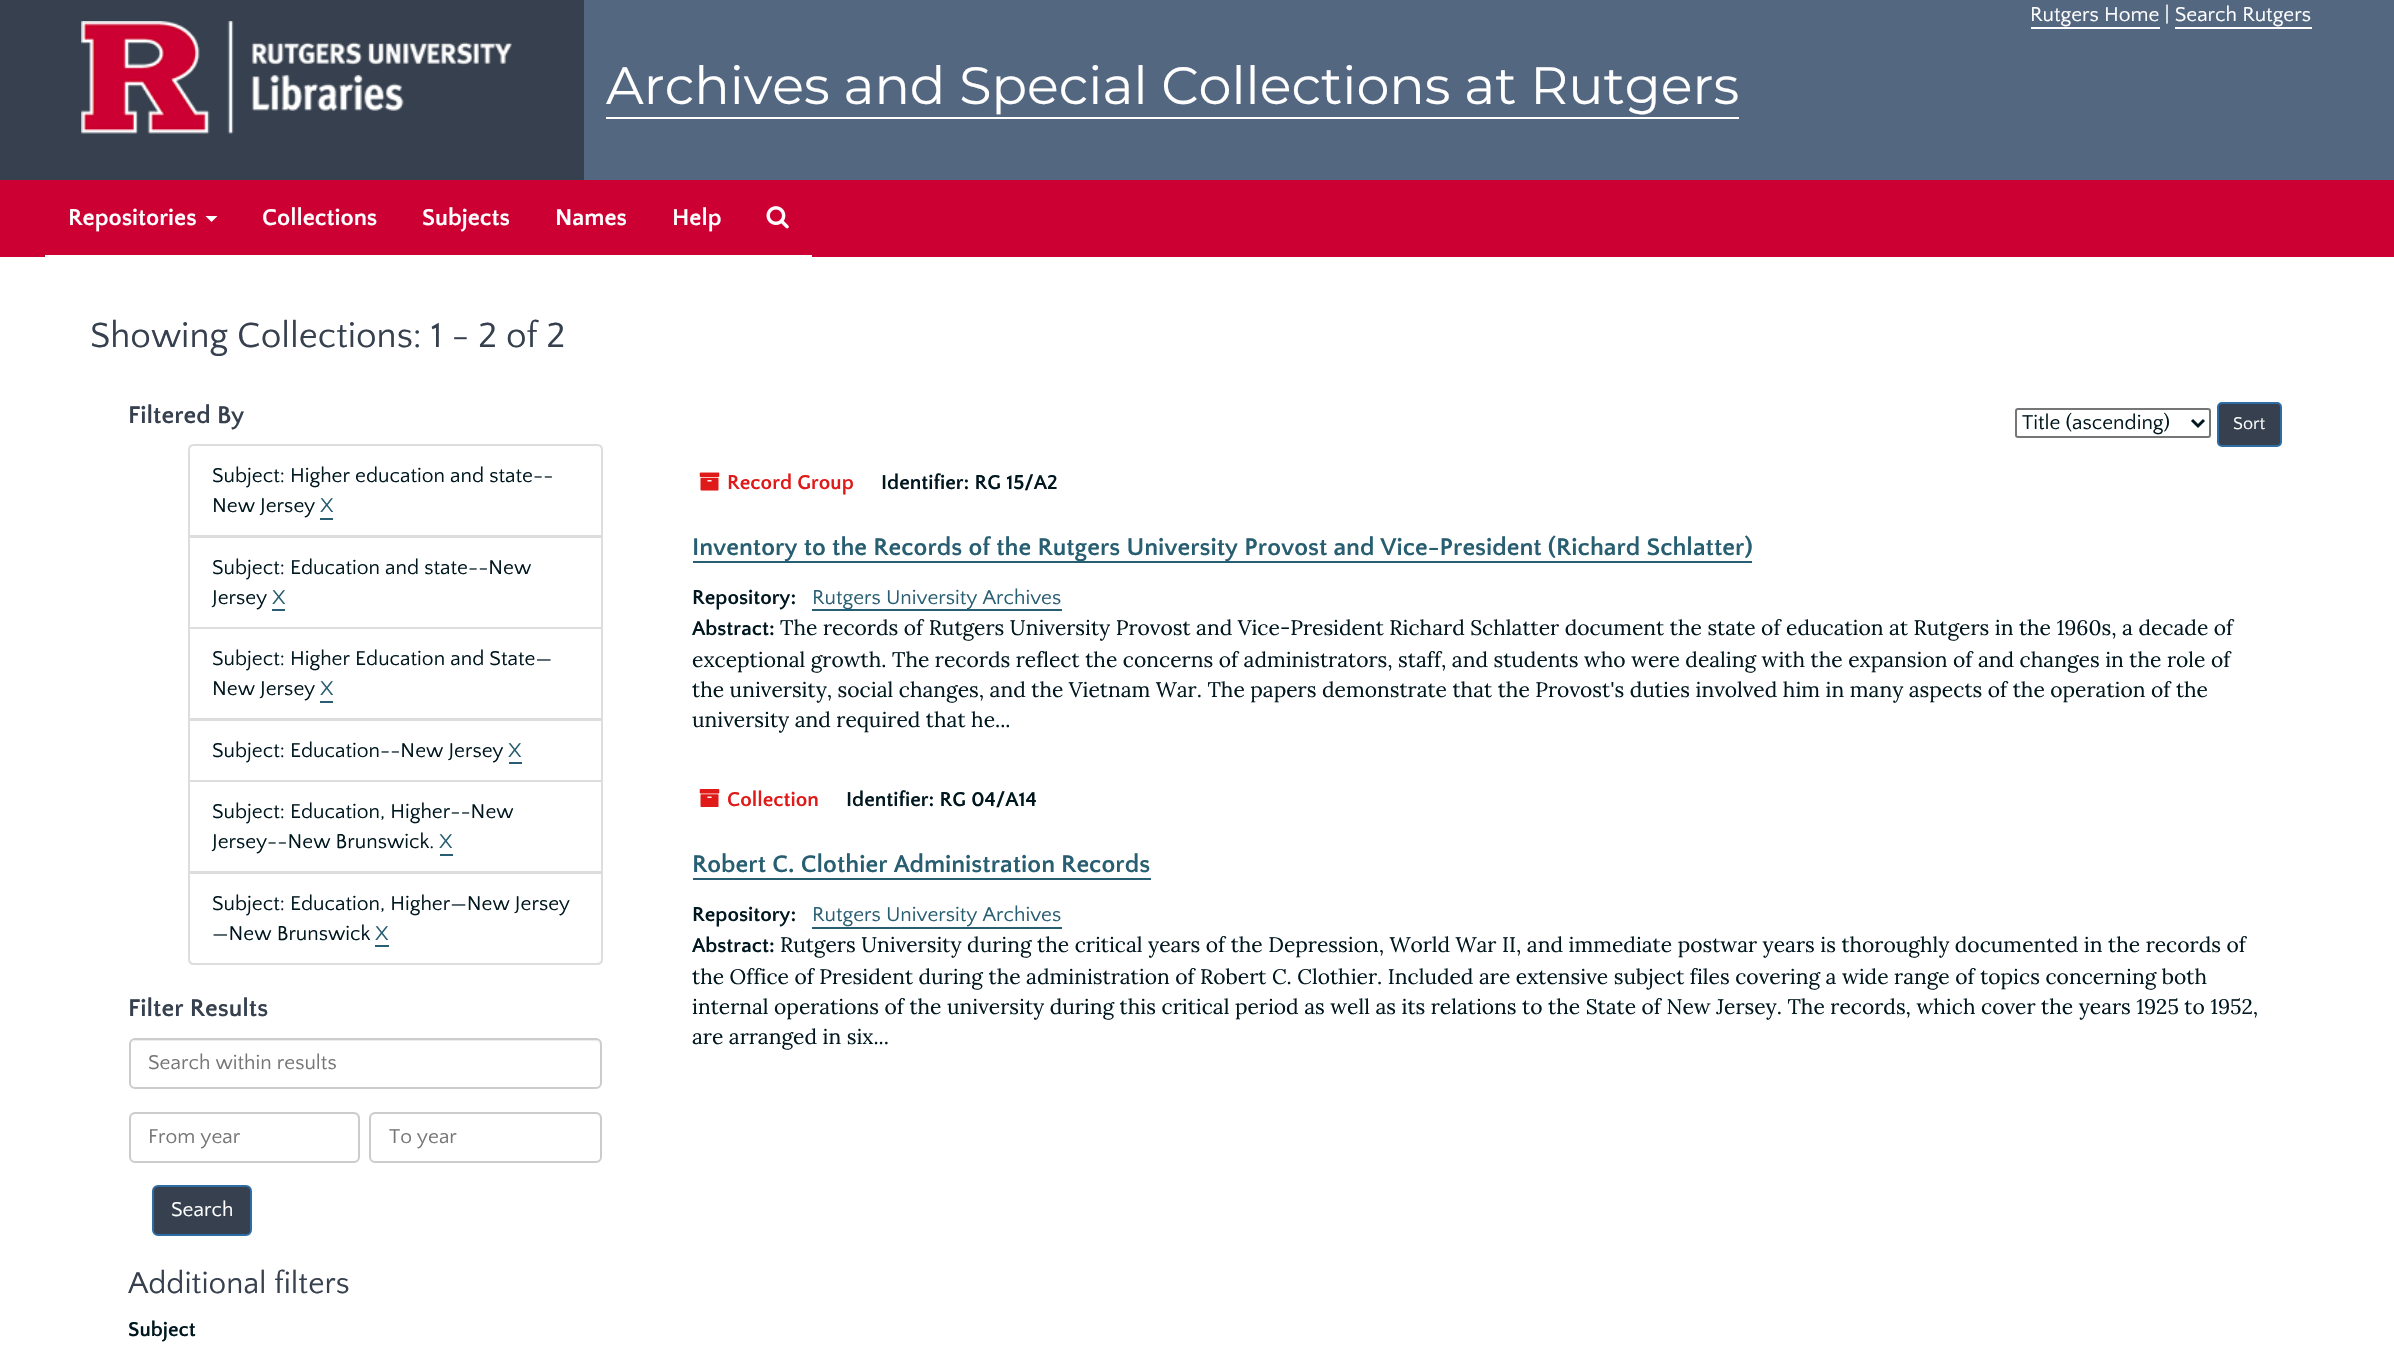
void draw(SkCanvas* canvas) {
    SkPaint paint;
    paint.setAntiAlias(true);
    auto face = [&](const char* family, int weight, float size, bool italic = false) {
        SkFontStyle style(weight, SkFontStyle::kNormal_Width,
            italic ? SkFontStyle::kItalic_Slant : SkFontStyle::kUpright_Slant);
        SkFont result(fontMgr->matchFamilyStyle(family, style), size);
        result.setSubpixel(true);
        return result;
    };
    auto write = [&](const char* s, float x, float y, const SkFont& font, SkColor color) {
        SkPaint ink(SkColor4f::FromColor(color));
        ink.setAntiAlias(true);
        canvas->drawString(s, x, y, font, ink);
    };
    auto block = [&](float x, float y, float w, float h, SkColor color) {
        SkPaint ink(SkColor4f::FromColor(color));
        ink.setAntiAlias(true);
        canvas->drawRect(SkRect::MakeXYWH(x, y, w, h), ink);
    };
    auto paste = [&](const char* path, float x, float y, float w, float h) {
        auto image = SkImages::DeferredFromEncodedData(SkData::MakeFromFileName(path));
        canvas->drawImageRect(image, SkRect::MakeXYWH(x, y, w, h), SkSamplingOptions());
    };
    canvas->clear(SK_ColorWHITE);
    block(584, 0, 1810, 180, SkColorSetRGB(84, 103, 129));
    block(0, 0, 584, 180, SkColorSetRGB(54, 64, 78));
    paste("pic1.png", 81, 21, 431, 113);
    auto kFont1 = face("Quattrocento Sans", 400, 21);
    write("Rutgers Home | Search Rutgers", 2030, 21, kFont1, SK_ColorWHITE);
    block(2031, 27, 129, 2, SK_ColorWHITE);
    block(2175, 27, 137, 2, SK_ColorWHITE);
    auto kFont2 = face("Montserrat", 400, 52.5f);
    write("Archives and Special Collections at Rutgers", 606, 104, kFont2, SK_ColorWHITE);
    block(606, 117, 1133, 2, SK_ColorWHITE);
    block(0, 180, 2394, 77, SkColorSetRGB(204, 0, 51));
    block(45, 255, 767, 2, SK_ColorWHITE);
    auto kFont3 = face("Quattrocento Sans", 700, 24);
    write("Repositories", 68, 225, kFont3, SK_ColorWHITE);
    paint.setColor(SK_ColorWHITE);
    canvas->drawPath(SkPathBuilder().moveTo(205.5f, 216).lineTo(217.5f, 216).lineTo(211.5f, 222).close().detach(), paint);
    write("Collections", 262, 225, kFont3, SK_ColorWHITE);
    write("Subjects", 422, 225, kFont3, SK_ColorWHITE);
    write("Names", 555, 225, kFont3, SK_ColorWHITE);
    write("Help", 672, 225, kFont3, SK_ColorWHITE);
    paste("pic2.png", 766, 206, 23, 23);
    auto kFont4 = face("Quattrocento Sans", 400, 36.75f);
    write("Showing Collections: 1 - 2 of 2", 90, 347, kFont4, SkColorSetRGB(54, 64, 78));
    auto kFont5 = face("Quattrocento Sans", 700, 25.2f);
    write("Filtered By", 128, 423, kFont5, SkColorSetRGB(54, 64, 78));
    paint.setStyle(SkPaint::kStroke_Style);
    paint.setStrokeWidth(2);
    paint.setColor(SkColorSetRGB(221, 221, 221));
    canvas->drawPath(SkPathBuilder().moveTo(194, 445).lineTo(597, 445).cubicTo(600, 445, 602, 447, 602, 450).lineTo(602, 536).lineTo(189, 536).lineTo(189, 450).cubicTo(189, 447, 191, 445, 194, 445).close().detach(), paint);
    write("Subject: Higher education and state--", 212, 482, kFont1, SkColorSetRGB(0, 23, 31));
    write("New Jersey", 212, 512, kFont1, SkColorSetRGB(0, 23, 31));
    block(320, 518, 13, 2, SkColorSetRGB(40, 94, 113));
    write("X", 320, 512, kFont1, SkColorSetRGB(40, 94, 113));
    canvas->drawRect(SkRect::MakeXYWH(189, 537, 413, 91), paint);
    write("Subject: Education and state--New", 212, 574, kFont1, SkColorSetRGB(0, 23, 31));
    write("Jersey", 212, 604, kFont1, SkColorSetRGB(0, 23, 31));
    block(272, 609, 13, 2, SkColorSetRGB(40, 94, 113));
    write("X", 272, 604, kFont1, SkColorSetRGB(40, 94, 113));
    canvas->drawRect(SkRect::MakeXYWH(189, 628, 413, 91), paint);
    write("Subject: Higher Education and State—", 212, 665, kFont1, SkColorSetRGB(0, 23, 31));
    write("New Jersey", 212, 695, kFont1, SkColorSetRGB(0, 23, 31));
    block(320, 701, 13, 2, SkColorSetRGB(40, 94, 113));
    write("X", 320, 695, kFont1, SkColorSetRGB(40, 94, 113));
    canvas->drawRect(SkRect::MakeXYWH(189, 720, 413, 61), paint);
    write("Subject: Education--New Jersey", 212, 757, kFont1, SkColorSetRGB(0, 23, 31));
    write("X", 508, 757, kFont1, SkColorSetRGB(40, 94, 113));
    block(509, 762, 13, 2, SkColorSetRGB(40, 94, 113));
    canvas->drawRect(SkRect::MakeXYWH(189, 781, 413, 91), paint);
    write("Subject: Education, Higher--New", 212, 818, kFont1, SkColorSetRGB(0, 23, 31));
    write("Jersey--New Brunswick.", 212, 848, kFont1, SkColorSetRGB(0, 23, 31));
    write("X", 439, 848, kFont1, SkColorSetRGB(40, 94, 113));
    block(440, 854, 13, 2, SkColorSetRGB(40, 94, 113));
    paint.setStyle(SkPaint::kFill_Style);
    paint.setColor(SK_ColorWHITE);
    canvas->drawPath(SkPathBuilder().moveTo(189, 873).lineTo(602, 873).lineTo(602, 959).cubicTo(602, 962, 600, 964, 597, 964).lineTo(194, 964).cubicTo(191, 964, 189, 962, 189, 959).close().detach(), paint);
    paint.setStyle(SkPaint::kStroke_Style);
    paint.setColor(SkColorSetRGB(221, 221, 221));
    canvas->drawPath(SkPathBuilder().moveTo(189, 873).lineTo(602, 873).lineTo(602, 959).cubicTo(602, 962, 600, 964, 597, 964).lineTo(194, 964).cubicTo(191, 964, 189, 962, 189, 959).close().detach(), paint);
    write("Subject: Education, Higher—New Jersey", 212, 910, kFont1, SkColorSetRGB(0, 23, 31));
    write("—New Brunswick", 212, 940, kFont1, SkColorSetRGB(0, 23, 31));
    write("X", 375, 940, kFont1, SkColorSetRGB(40, 94, 113));
    block(375, 945, 14, 2, SkColorSetRGB(40, 94, 113));
    write("Filter Results", 128, 1016, kFont5, SkColorSetRGB(54, 64, 78));
    paint.setStyle(SkPaint::kFill_Style);
    paint.setColor(SkColorSetRGB(236, 236, 236));
    canvas->drawPath(SkPathBuilder().moveTo(135, 1041).lineTo(596, 1041).cubicTo(598, 1041, 600, 1043, 600, 1046).lineTo(600, 1045).cubicTo(600, 1042, 598, 1040, 595, 1040).lineTo(136, 1040).cubicTo(134, 1040, 133, 1041, 132, 1042).close().detach(), paint);
    paint.setStyle(SkPaint::kStroke_Style);
    paint.setColor(SkColorSetRGB(204, 204, 204));
    canvas->drawRoundRect(SkRect::MakeXYWH(130, 1039, 471, 49), 5, 5, paint);
    write("Search within results", 148, 1069, kFont1, SkColorSetRGB(118, 118, 118));
    paint.setStyle(SkPaint::kFill_Style);
    paint.setColor(SkColorSetRGB(236, 236, 236));
    canvas->drawPath(SkPathBuilder().moveTo(135, 1114).lineTo(354, 1114).cubicTo(356, 1114, 358, 1117, 358, 1119).lineTo(358, 1159).cubicTo(359, 1158, 359, 1157, 359, 1156).lineTo(359, 1118).cubicTo(359, 1115, 357, 1113, 354, 1113).lineTo(136, 1113).cubicTo(134, 1113, 132, 1114, 131, 1116).cubicTo(132, 1115, 134, 1114, 135, 1114).close().detach(), paint);
    paint.setStyle(SkPaint::kStroke_Style);
    paint.setColor(SkColorSetRGB(204, 204, 204));
    canvas->drawRoundRect(SkRect::MakeXYWH(130, 1113, 229, 49), 5, 5, paint);
    write("From year", 148, 1143, kFont1, SkColorSetRGB(118, 118, 118));
    paint.setStyle(SkPaint::kFill_Style);
    paint.setColor(SkColorSetRGB(236, 236, 236));
    canvas->drawPath(SkPathBuilder().moveTo(375, 1114).lineTo(596, 1114).cubicTo(598, 1114, 600, 1117, 600, 1119).lineTo(600, 1118).cubicTo(600, 1115, 598, 1113, 595, 1113).lineTo(376, 1113).cubicTo(374, 1113, 372, 1114, 371, 1116).cubicTo(372, 1115, 374, 1114, 375, 1114).close().detach(), paint);
    paint.setStyle(SkPaint::kStroke_Style);
    paint.setColor(SkColorSetRGB(204, 204, 204));
    canvas->drawRoundRect(SkRect::MakeXYWH(370, 1113, 231, 49), 5, 5, paint);
    write("To year", 389, 1143, kFont1, SkColorSetRGB(118, 118, 118));
    paint.setStyle(SkPaint::kFill_Style);
    paint.setColor(SkColorSetRGB(54, 64, 78));
    canvas->drawRoundRect(SkRect::MakeXYWH(153, 1186, 98, 49), 5, 5, paint);
    paint.setStyle(SkPaint::kStroke_Style);
    paint.setColor(SkColorSetRGB(46, 109, 164));
    canvas->drawRoundRect(SkRect::MakeXYWH(153, 1186, 98, 49), 5, 5, paint);
    write("Search", 171, 1216, kFont1, SK_ColorWHITE);
    auto kFont6 = face("Quattrocento Sans", 400, 31.5f);
    write("Additional filters", 128, 1293, kFont6, SkColorSetRGB(54, 64, 78));
    auto kFont7 = face("Quattrocento Sans", 700, 21);
    write("Subject", 128, 1336, kFont7, SkColorSetRGB(0, 23, 31));
    paint.setColor(SkColorSetRGB(118, 118, 118));
    canvas->drawRoundRect(SkRect::MakeXYWH(2016, 409, 194, 28), 2, 2, paint);
    paint.setStrokeWidth(3);
    paint.setColor(SkColorSetRGB(0, 23, 31));
    canvas->drawPath(SkPathBuilder().moveTo(2192, 420).lineTo(2198, 426).lineTo(2204, 420).detach(), paint);
    write("Title (ascending)", 2022, 429, kFont1, SkColorSetRGB(0, 23, 31));
    paint.setStyle(SkPaint::kFill_Style);
    paint.setColor(SkColorSetRGB(54, 64, 78));
    canvas->drawRoundRect(SkRect::MakeXYWH(2218, 403, 63, 43), 4, 4, paint);
    paint.setStyle(SkPaint::kStroke_Style);
    paint.setStrokeWidth(2);
    paint.setColor(SkColorSetRGB(46, 109, 164));
    canvas->drawRoundRect(SkRect::MakeXYWH(2218, 403, 63, 43), 4, 4, paint);
    auto kFont8 = face("Quattrocento Sans", 400, 18);
    write("Sort", 2233, 429, kFont8, SK_ColorWHITE);
    paste("pic3.png", 699, 472, 21, 19);
    write("Record Group", 727, 489, kFont7, SkColorSetRGB(224, 25, 25));
    write("Identifier: RG 15/A2", 881, 489, kFont7, SkColorSetRGB(0, 23, 31));
    block(693, 561, 1059, 2, SkColorSetRGB(40, 94, 113));
    write("Inventory to the Records of the Rutgers University Provost and Vice-President (Richard Schlatter)", 692, 555, kFont5, SkColorSetRGB(40, 94, 113));
    write("Repository:", 692, 604, kFont7, SkColorSetRGB(0, 23, 31));
    block(812, 609, 250, 2, SkColorSetRGB(40, 94, 113));
    write("Rutgers University Archives", 812, 604, kFont1, SkColorSetRGB(40, 94, 113));
    write("Abstract:", 692, 635, kFont7, SkColorSetRGB(0, 23, 31));
    auto kFont9 = face("Lora", 400, 21);
    write("The records of Rutgers University Provost and Vice-President Richard Schlatter document the state of education at Rutgers in the 1960s, a decade of", 780, 635, kFont9, SkColorSetRGB(0, 23, 31));
    write("exceptional growth. The records reflect the concerns of administrators, staff, and students who were dealing with the expansion of and changes in the role of", 692, 667, kFont9, SkColorSetRGB(0, 23, 31));
    write("the university, social changes, and the Vietnam War. The papers demonstrate that the Provost's duties involved him in many aspects of the operation of the", 692, 697, kFont9, SkColorSetRGB(0, 23, 31));
    write("university and required that he...", 692, 727, kFont9, SkColorSetRGB(0, 23, 31));
    paste("pic4.png", 699, 789, 21, 18);
    write("Collection", 727, 806, kFont7, SkColorSetRGB(224, 25, 25));
    write("Identifier: RG 04/A14", 846, 806, kFont7, SkColorSetRGB(0, 23, 31));
    write("Robert C. Clothier Administration Records", 692, 872, kFont5, SkColorSetRGB(40, 94, 113));
    block(693, 878, 458, 2, SkColorSetRGB(40, 94, 113));
    write("Repository:", 692, 921, kFont7, SkColorSetRGB(0, 23, 31));
    write("Rutgers University Archives", 812, 921, kFont1, SkColorSetRGB(40, 94, 113));
    block(812, 927, 250, 2, SkColorSetRGB(40, 94, 113));
    write("Abstract:", 692, 952, kFont7, SkColorSetRGB(0, 23, 31));
    write("Rutgers University during the critical years of the Depression, World War II, and immediate postwar years is thoroughly documented in the records of", 780, 952, kFont9, SkColorSetRGB(0, 23, 31));
    write("the Office of President during the administration of Robert C. Clothier. Included are extensive subject files covering a wide range of topics concerning both", 692, 984, kFont9, SkColorSetRGB(0, 23, 31));
    write("internal operations of the university during this critical period as well as its relations to the State of New Jersey. The records, which cover the years 1925 to 1952,", 692, 1014, kFont9, SkColorSetRGB(0, 23, 31));
    write("are arranged in six...", 692, 1044, kFont9, SkColorSetRGB(0, 23, 31));
}
